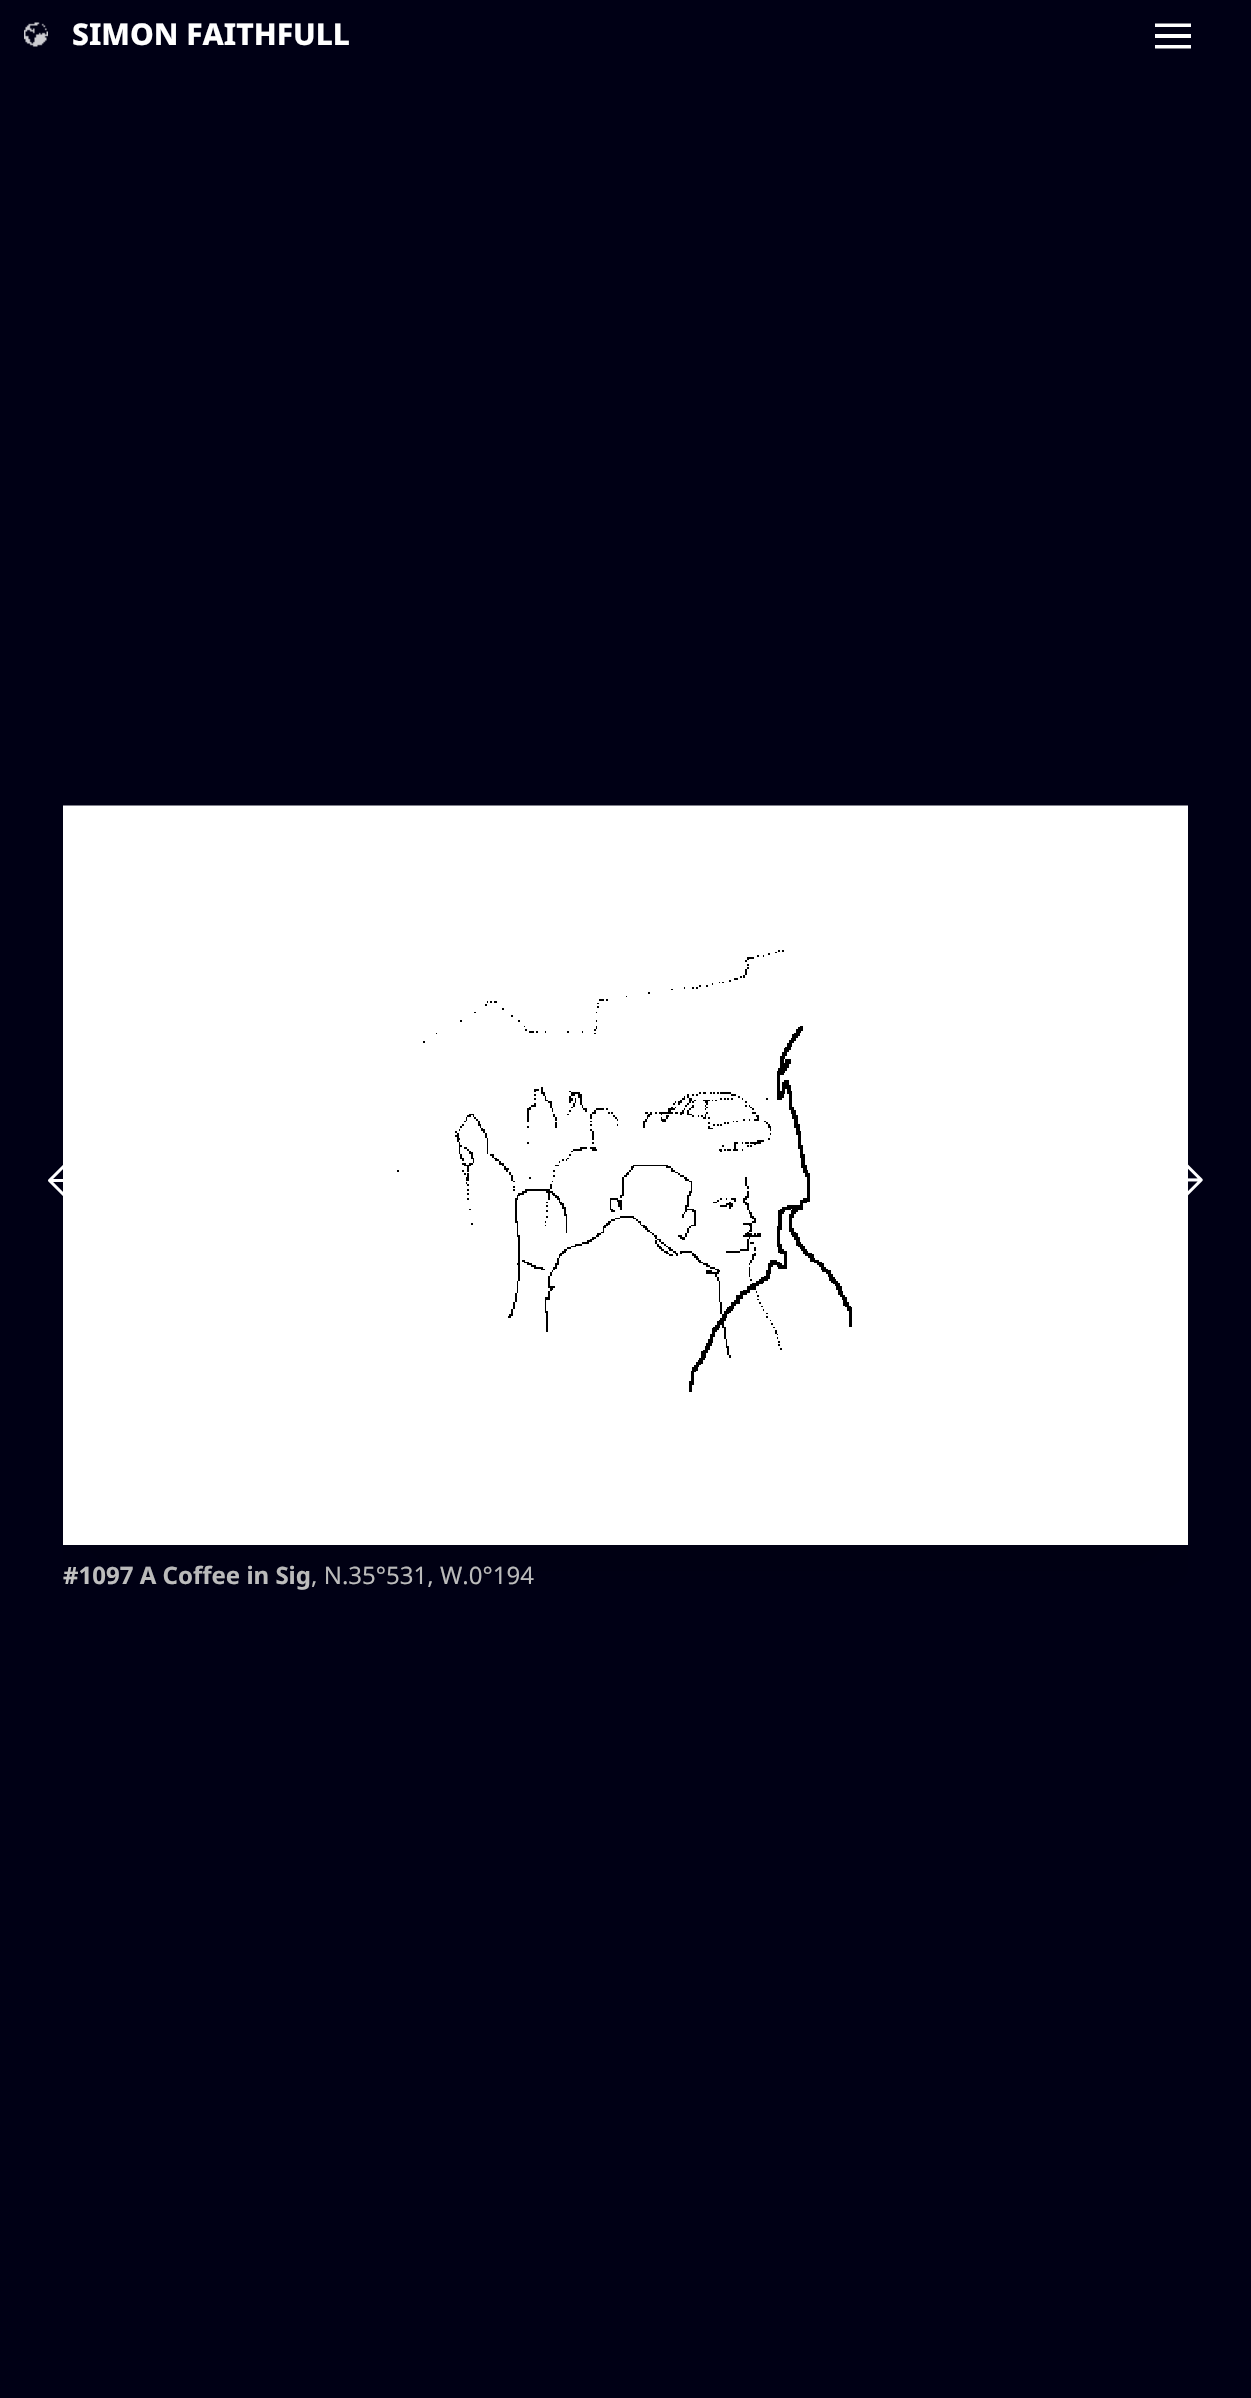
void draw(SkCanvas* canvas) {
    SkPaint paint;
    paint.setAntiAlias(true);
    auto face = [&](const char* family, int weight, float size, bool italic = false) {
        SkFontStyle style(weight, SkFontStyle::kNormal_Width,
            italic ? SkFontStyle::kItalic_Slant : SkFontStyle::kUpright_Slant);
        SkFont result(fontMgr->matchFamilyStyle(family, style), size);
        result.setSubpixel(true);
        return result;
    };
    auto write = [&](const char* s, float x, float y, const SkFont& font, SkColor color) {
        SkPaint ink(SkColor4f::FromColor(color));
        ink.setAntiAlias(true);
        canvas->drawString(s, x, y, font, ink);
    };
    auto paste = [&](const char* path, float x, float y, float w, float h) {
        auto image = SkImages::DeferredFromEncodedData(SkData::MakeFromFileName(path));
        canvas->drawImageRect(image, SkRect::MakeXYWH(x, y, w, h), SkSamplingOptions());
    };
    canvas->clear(SkColorSetRGB(0, 0, 21));
    paste("pic1.png", 24, 22, 24, 25);
    auto kFont1 = face("Noto Sans", 800, 30);
    write("SIMON FAITHFULL", 72, 45, kFont1, SK_ColorWHITE);
    paint.setColor(SK_ColorWHITE);
    canvas->drawPath(SkPathBuilder(SkPathFillType::kEvenOdd).moveTo(1155, 23.5f).lineTo(1191, 23.5f).lineTo(1191, 27).lineTo(1155, 27).close().moveTo(1155, 34).lineTo(1191, 34).lineTo(1191, 38).lineTo(1155, 38).close().moveTo(1155, 45).lineTo(1191, 45).lineTo(1191, 48.5f).lineTo(1155, 48.5f).close().detach(), paint);
    paste("pic2.png", 48, 1165, 15, 31);
    paste("pic3.png", 1188, 1164, 15, 32);
    auto kFont2 = face("Noto Sans", 700, 24);
    write("#1097 A Coffee in Sig", 63, 1584, kFont2, SkColorSetRGB(204, 204, 204));
    auto kFont3 = face("Noto Sans", 400, 24);
    write(", N.35°531, W.0°194", 311, 1584, kFont3, SkColorSetRGB(204, 204, 204));
    paste("pic4.png", 63, 805, 1125, 785);
}
